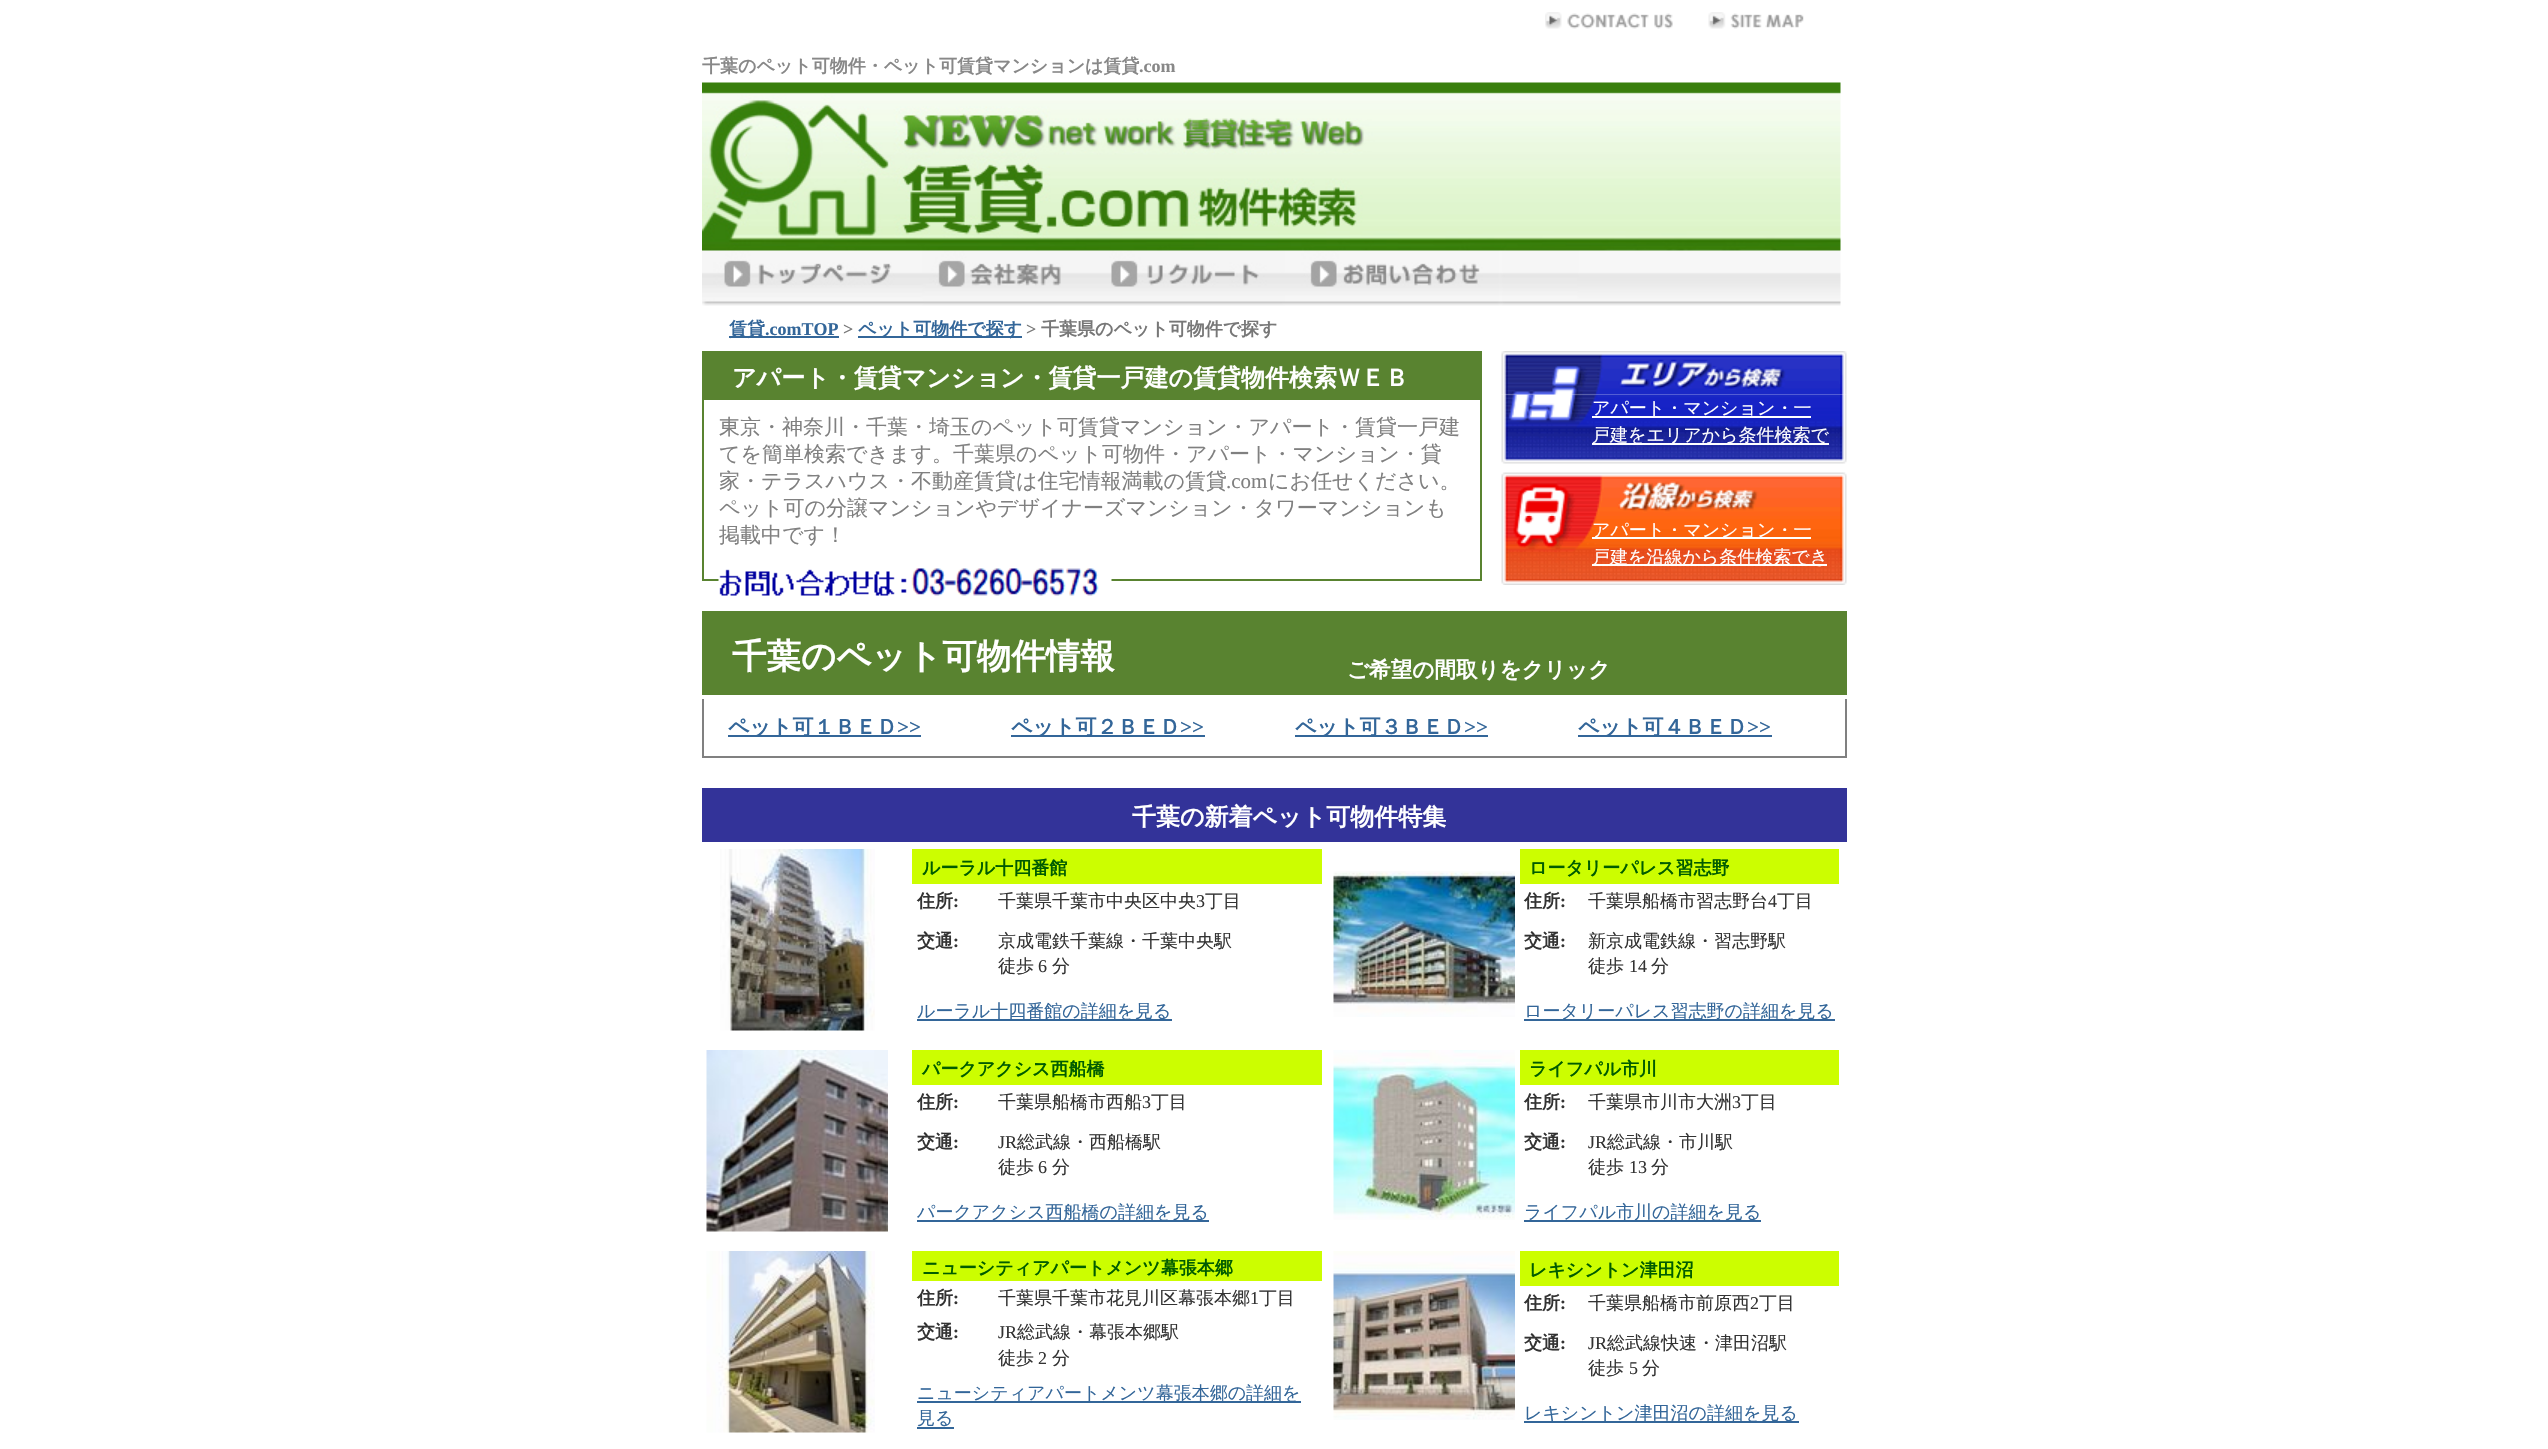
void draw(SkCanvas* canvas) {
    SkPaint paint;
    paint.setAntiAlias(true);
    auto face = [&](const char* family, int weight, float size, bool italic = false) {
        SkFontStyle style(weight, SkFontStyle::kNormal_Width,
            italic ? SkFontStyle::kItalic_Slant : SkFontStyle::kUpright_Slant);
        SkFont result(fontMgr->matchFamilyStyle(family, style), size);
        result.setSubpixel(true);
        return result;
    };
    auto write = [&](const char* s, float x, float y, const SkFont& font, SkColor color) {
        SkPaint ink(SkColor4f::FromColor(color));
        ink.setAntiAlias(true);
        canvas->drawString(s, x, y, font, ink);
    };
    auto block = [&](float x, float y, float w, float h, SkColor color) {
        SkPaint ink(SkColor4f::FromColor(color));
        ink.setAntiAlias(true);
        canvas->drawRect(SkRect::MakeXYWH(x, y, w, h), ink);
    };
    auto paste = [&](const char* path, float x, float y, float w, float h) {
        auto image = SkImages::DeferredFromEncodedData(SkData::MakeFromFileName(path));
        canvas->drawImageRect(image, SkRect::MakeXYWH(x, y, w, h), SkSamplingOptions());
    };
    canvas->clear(SK_ColorWHITE);
    paste("pic1.png", 1545, 12, 128, 17);
    paste("pic2.png", 1708, 12, 96, 17);
    auto kFont1 = face("WenQuanYi Zen Hei", 700, 18);
    write("千葉のペット可物件・ペット可賃貸マンションは賃貸", 702, 72, kFont1, SkColorSetRGB(136, 136, 136));
    auto kFont2 = face("Liberation Serif", 700, 18);
    write(".com", 1139, 72, kFont2, SkColorSetRGB(136, 136, 136));
    paste("pic3.png", 702, 82, 1139, 224);
    block(729, 336, 110, 2, SkColorSetRGB(51, 102, 153));
    write("賃貸", 729, 335, kFont1, SkColorSetRGB(51, 102, 153));
    write(".comTOP", 765, 335, kFont2, SkColorSetRGB(51, 102, 153));
    write(">", 843, 335, kFont2, SkColorSetRGB(119, 119, 119));
    block(858, 336, 164, 2, SkColorSetRGB(51, 102, 153));
    write("ペット可物件で探す", 858, 335, kFont1, SkColorSetRGB(51, 102, 153));
    write(">", 1026, 335, kFont2, SkColorSetRGB(119, 119, 119));
    write("千葉県のペット可物件で探す", 1041, 335, kFont1, SkColorSetRGB(119, 119, 119));
    block(702, 351, 780, 47, SkColorSetRGB(89, 131, 48));
    auto kFont3 = face("WenQuanYi Zen Hei", 700, 24);
    write("アパート・賃貸マンション・賃貸一戸建の賃貸物件検索ＷＥＢ", 732, 386, kFont3, SK_ColorWHITE);
    paint.setStyle(SkPaint::kStroke_Style);
    paint.setStrokeWidth(2);
    paint.setColor(SkColorSetRGB(89, 131, 48));
    canvas->drawRect(SkRect::MakeXYWH(703, 399, 778, 181), paint);
    auto kFont4 = face("WenQuanYi Zen Hei", 500, 21);
    write("東京・神奈川・千葉・埼玉のペット可賃貸マンション・アパート・賃貸一戸建", 719, 434, kFont4, SkColorSetRGB(128, 128, 128));
    write("てを簡単検索できます。千葉県のペット可物件・アパート・マンション・貸", 719, 461, kFont4, SkColorSetRGB(128, 128, 128));
    write("家・テラスハウス・不動産賃貸は住宅情報満載の賃貸", 719, 488, kFont4, SkColorSetRGB(128, 128, 128));
    auto kFont5 = face("Liberation Serif", 400, 21);
    write(".com", 1226, 488, kFont5, SkColorSetRGB(128, 128, 128));
    write("にお任せください。", 1268, 488, kFont4, SkColorSetRGB(128, 128, 128));
    write("ペット可の分譲マンションやデザイナーズマンション・タワーマンションも", 719, 515, kFont4, SkColorSetRGB(128, 128, 128));
    write("掲載中です！", 719, 542, kFont4, SkColorSetRGB(128, 128, 128));
    paste("pic4.png", 718, 568, 394, 28);
    paste("pic6.png", 1501, 394, 346, 70);
    paste("pic5.png", 1501, 351, 346, 44);
    block(1592, 416, 219, 2, SK_ColorWHITE);
    auto kFont6 = face("WenQuanYi Zen Hei", 500, 18);
    write("アパート・マンション・一", 1592, 414, kFont6, SK_ColorWHITE);
    block(1592, 443, 237, 2, SK_ColorWHITE);
    write("戸建をエリアから条件検索で", 1592, 441, kFont6, SK_ColorWHITE);
    paste("pic7.png", 1501, 472, 346, 44);
    paste("pic8.png", 1501, 516, 346, 69);
    block(1592, 537, 219, 2, SK_ColorWHITE);
    write("アパート・マンション・一", 1592, 536, kFont6, SK_ColorWHITE);
    block(1592, 564, 235, 2, SK_ColorWHITE);
    write("戸建を沿線から条件検索でき", 1592, 563, kFont6, SK_ColorWHITE);
    block(702, 611, 1145, 84, SkColorSetRGB(89, 131, 48));
    auto kFont7 = face("WenQuanYi Zen Hei", 700, 34.5f);
    write("千葉のペット可物件情報", 732, 668, kFont7, SK_ColorWHITE);
    auto kFont8 = face("WenQuanYi Zen Hei", 700, 21.6f);
    write("ご希望の間取りをクリック", 1347, 677, kFont8, SK_ColorWHITE);
    block(1845, 699, 2, 59, SkColorSetRGB(128, 128, 128));
    block(702, 756, 1145, 2, SkColorSetRGB(128, 128, 128));
    block(702, 699, 2, 59, SkColorSetRGB(128, 128, 128));
    block(728, 735, 193, 2, SkColorSetRGB(51, 102, 153));
    auto kFont9 = face("WenQuanYi Zen Hei", 700, 21);
    write("ペット可１ＢＥＤ", 728, 734, kFont9, SkColorSetRGB(51, 102, 153));
    auto kFont10 = face("Liberation Serif", 700, 21);
    write(">>", 897, 734, kFont10, SkColorSetRGB(51, 102, 153));
    block(1011, 735, 194, 2, SkColorSetRGB(51, 102, 153));
    write("ペット可２ＢＥＤ", 1011, 734, kFont9, SkColorSetRGB(51, 102, 153));
    write(">>", 1180, 734, kFont10, SkColorSetRGB(51, 102, 153));
    block(1295, 735, 193, 2, SkColorSetRGB(51, 102, 153));
    write("ペット可３ＢＥＤ", 1295, 734, kFont9, SkColorSetRGB(51, 102, 153));
    write(">>", 1464, 734, kFont10, SkColorSetRGB(51, 102, 153));
    block(1578, 735, 194, 2, SkColorSetRGB(51, 102, 153));
    write("ペット可４ＢＥＤ", 1578, 734, kFont9, SkColorSetRGB(51, 102, 153));
    write(">>", 1747, 734, kFont10, SkColorSetRGB(51, 102, 153));
    block(702, 788, 1145, 54, SkColorSetRGB(51, 51, 153));
    write("千葉の新着ペット可物件特集", 1132, 825, kFont3, SK_ColorWHITE);
    paste("pic9.png", 720, 849, 155, 182);
    block(912, 849, 410, 35, SkColorSetRGB(204, 254, 0));
    write("ルーラル十四番館", 922, 874, kFont1, SkColorSetRGB(0, 92, 0));
    write("住所", 917, 907, kFont1, SkColorSetRGB(51, 51, 51));
    write(":", 953, 907, kFont2, SkColorSetRGB(51, 51, 51));
    write("千葉県千葉市中央区中央", 998, 907, kFont6, SkColorSetRGB(51, 51, 51));
    auto kFont11 = face("Liberation Serif", 400, 18);
    write("3", 1196, 907, kFont11, SkColorSetRGB(51, 51, 51));
    write("丁目", 1205, 907, kFont6, SkColorSetRGB(51, 51, 51));
    write("交通", 917, 947, kFont1, SkColorSetRGB(51, 51, 51));
    write(":", 953, 947, kFont2, SkColorSetRGB(51, 51, 51));
    write("京成電鉄千葉線・千葉中央駅", 998, 947, kFont6, SkColorSetRGB(51, 51, 51));
    write("徒歩", 998, 972, kFont6, SkColorSetRGB(51, 51, 51));
    write("6", 1038, 972, kFont11, SkColorSetRGB(51, 51, 51));
    write("分", 1052, 972, kFont6, SkColorSetRGB(51, 51, 51));
    block(917, 1019, 255, 2, SkColorSetRGB(51, 102, 153));
    write("ルーラル十四番館の詳細を見る", 917, 1017, kFont6, SkColorSetRGB(51, 102, 153));
    block(1520, 849, 319, 35, SkColorSetRGB(204, 254, 0));
    write("ロータリーパレス習志野", 1529, 874, kFont1, SkColorSetRGB(0, 92, 0));
    paste("pic10.png", 1333, 871, 182, 146);
    write("住所", 1524, 907, kFont1, SkColorSetRGB(51, 51, 51));
    write(":", 1560, 907, kFont2, SkColorSetRGB(51, 51, 51));
    write("千葉県船橋市習志野台", 1588, 907, kFont6, SkColorSetRGB(51, 51, 51));
    write("4", 1768, 907, kFont11, SkColorSetRGB(51, 51, 51));
    write("丁目", 1777, 907, kFont6, SkColorSetRGB(51, 51, 51));
    write("交通", 1524, 947, kFont1, SkColorSetRGB(51, 51, 51));
    write(":", 1560, 947, kFont2, SkColorSetRGB(51, 51, 51));
    write("新京成電鉄線・習志野駅", 1588, 947, kFont6, SkColorSetRGB(51, 51, 51));
    write("徒歩", 1588, 972, kFont6, SkColorSetRGB(51, 51, 51));
    write("14", 1629, 972, kFont11, SkColorSetRGB(51, 51, 51));
    write("分", 1651, 972, kFont6, SkColorSetRGB(51, 51, 51));
    block(1524, 1019, 311, 2, SkColorSetRGB(51, 102, 153));
    write("ロータリーパレス習志野の詳細を見る", 1524, 1017, kFont6, SkColorSetRGB(51, 102, 153));
    paste("pic11.png", 706, 1050, 182, 182);
    block(912, 1050, 410, 35, SkColorSetRGB(204, 254, 0));
    write("パークアクシス西船橋", 922, 1075, kFont1, SkColorSetRGB(0, 92, 0));
    write("住所", 917, 1108, kFont1, SkColorSetRGB(51, 51, 51));
    write(":", 953, 1108, kFont2, SkColorSetRGB(51, 51, 51));
    write("千葉県船橋市西船", 998, 1108, kFont6, SkColorSetRGB(51, 51, 51));
    write("3", 1142, 1108, kFont11, SkColorSetRGB(51, 51, 51));
    write("丁目", 1151, 1108, kFont6, SkColorSetRGB(51, 51, 51));
    write("交通", 917, 1148, kFont1, SkColorSetRGB(51, 51, 51));
    write(":", 953, 1148, kFont2, SkColorSetRGB(51, 51, 51));
    write("JR", 998, 1148, kFont11, SkColorSetRGB(51, 51, 51));
    write("総武線・西船橋駅", 1017, 1148, kFont6, SkColorSetRGB(51, 51, 51));
    write("徒歩", 998, 1173, kFont6, SkColorSetRGB(51, 51, 51));
    write("6", 1038, 1173, kFont11, SkColorSetRGB(51, 51, 51));
    write("分", 1052, 1173, kFont6, SkColorSetRGB(51, 51, 51));
    block(917, 1220, 292, 2, SkColorSetRGB(51, 102, 153));
    write("パークアクシス西船橋の詳細を見る", 917, 1218, kFont6, SkColorSetRGB(51, 102, 153));
    paste("pic12.png", 1333, 1050, 182, 170);
    block(1520, 1050, 319, 35, SkColorSetRGB(204, 254, 0));
    write("ライフパル市川", 1529, 1075, kFont1, SkColorSetRGB(0, 92, 0));
    write("住所", 1524, 1108, kFont1, SkColorSetRGB(51, 51, 51));
    write(":", 1560, 1108, kFont2, SkColorSetRGB(51, 51, 51));
    write("千葉県市川市大洲", 1588, 1108, kFont6, SkColorSetRGB(51, 51, 51));
    write("3", 1732, 1108, kFont11, SkColorSetRGB(51, 51, 51));
    write("丁目", 1741, 1108, kFont6, SkColorSetRGB(51, 51, 51));
    write("交通", 1524, 1148, kFont1, SkColorSetRGB(51, 51, 51));
    write(":", 1560, 1148, kFont2, SkColorSetRGB(51, 51, 51));
    write("JR", 1588, 1148, kFont11, SkColorSetRGB(51, 51, 51));
    write("総武線・市川駅", 1607, 1148, kFont6, SkColorSetRGB(51, 51, 51));
    write("徒歩", 1588, 1173, kFont6, SkColorSetRGB(51, 51, 51));
    write("13", 1629, 1173, kFont11, SkColorSetRGB(51, 51, 51));
    write("分", 1651, 1173, kFont6, SkColorSetRGB(51, 51, 51));
    block(1524, 1220, 237, 2, SkColorSetRGB(51, 102, 153));
    write("ライフパル市川の詳細を見る", 1524, 1218, kFont6, SkColorSetRGB(51, 102, 153));
    paste("pic13.png", 706, 1251, 169, 182);
    block(912, 1251, 410, 30, SkColorSetRGB(204, 254, 0));
    write("ニューシティアパートメンツ幕張本郷", 922, 1274, kFont1, SkColorSetRGB(0, 92, 0));
    write("住所", 917, 1304, kFont1, SkColorSetRGB(51, 51, 51));
    write(":", 953, 1304, kFont2, SkColorSetRGB(51, 51, 51));
    write("千葉県千葉市花見川区幕張本郷", 998, 1304, kFont6, SkColorSetRGB(51, 51, 51));
    write("1", 1250, 1304, kFont11, SkColorSetRGB(51, 51, 51));
    write("丁目", 1259, 1304, kFont6, SkColorSetRGB(51, 51, 51));
    write("交通", 917, 1338, kFont1, SkColorSetRGB(51, 51, 51));
    write(":", 953, 1338, kFont2, SkColorSetRGB(51, 51, 51));
    write("JR", 998, 1338, kFont11, SkColorSetRGB(51, 51, 51));
    write("総武線・幕張本郷駅", 1017, 1338, kFont6, SkColorSetRGB(51, 51, 51));
    write("徒歩", 998, 1364, kFont6, SkColorSetRGB(51, 51, 51));
    write("2", 1038, 1364, kFont11, SkColorSetRGB(51, 51, 51));
    write("分", 1052, 1364, kFont6, SkColorSetRGB(51, 51, 51));
    block(917, 1401, 384, 2, SkColorSetRGB(51, 102, 153));
    write("ニューシティアパートメンツ幕張本郷の詳細を", 917, 1399, kFont6, SkColorSetRGB(51, 102, 153));
    write("見る", 917, 1424, kFont6, SkColorSetRGB(51, 102, 153));
    block(917, 1427, 37, 2, SkColorSetRGB(51, 102, 153));
    paste("pic14.png", 1333, 1251, 182, 169);
    block(1520, 1251, 319, 35, SkColorSetRGB(204, 254, 0));
    write("レキシントン津田沼", 1529, 1276, kFont1, SkColorSetRGB(0, 92, 0));
    write("住所", 1524, 1309, kFont1, SkColorSetRGB(51, 51, 51));
    write(":", 1560, 1309, kFont2, SkColorSetRGB(51, 51, 51));
    write("千葉県船橋市前原西", 1588, 1309, kFont6, SkColorSetRGB(51, 51, 51));
    write("2", 1750, 1309, kFont11, SkColorSetRGB(51, 51, 51));
    write("丁目", 1759, 1309, kFont6, SkColorSetRGB(51, 51, 51));
    write("交通", 1524, 1349, kFont1, SkColorSetRGB(51, 51, 51));
    write(":", 1560, 1349, kFont2, SkColorSetRGB(51, 51, 51));
    write("JR", 1588, 1349, kFont11, SkColorSetRGB(51, 51, 51));
    write("総武線快速・津田沼駅", 1607, 1349, kFont6, SkColorSetRGB(51, 51, 51));
    write("徒歩", 1588, 1374, kFont6, SkColorSetRGB(51, 51, 51));
    write("5", 1629, 1374, kFont11, SkColorSetRGB(51, 51, 51));
    write("分", 1642, 1374, kFont6, SkColorSetRGB(51, 51, 51));
    block(1524, 1421, 275, 2, SkColorSetRGB(51, 102, 153));
    write("レキシントン津田沼の詳細を見る", 1524, 1419, kFont6, SkColorSetRGB(51, 102, 153));
}
